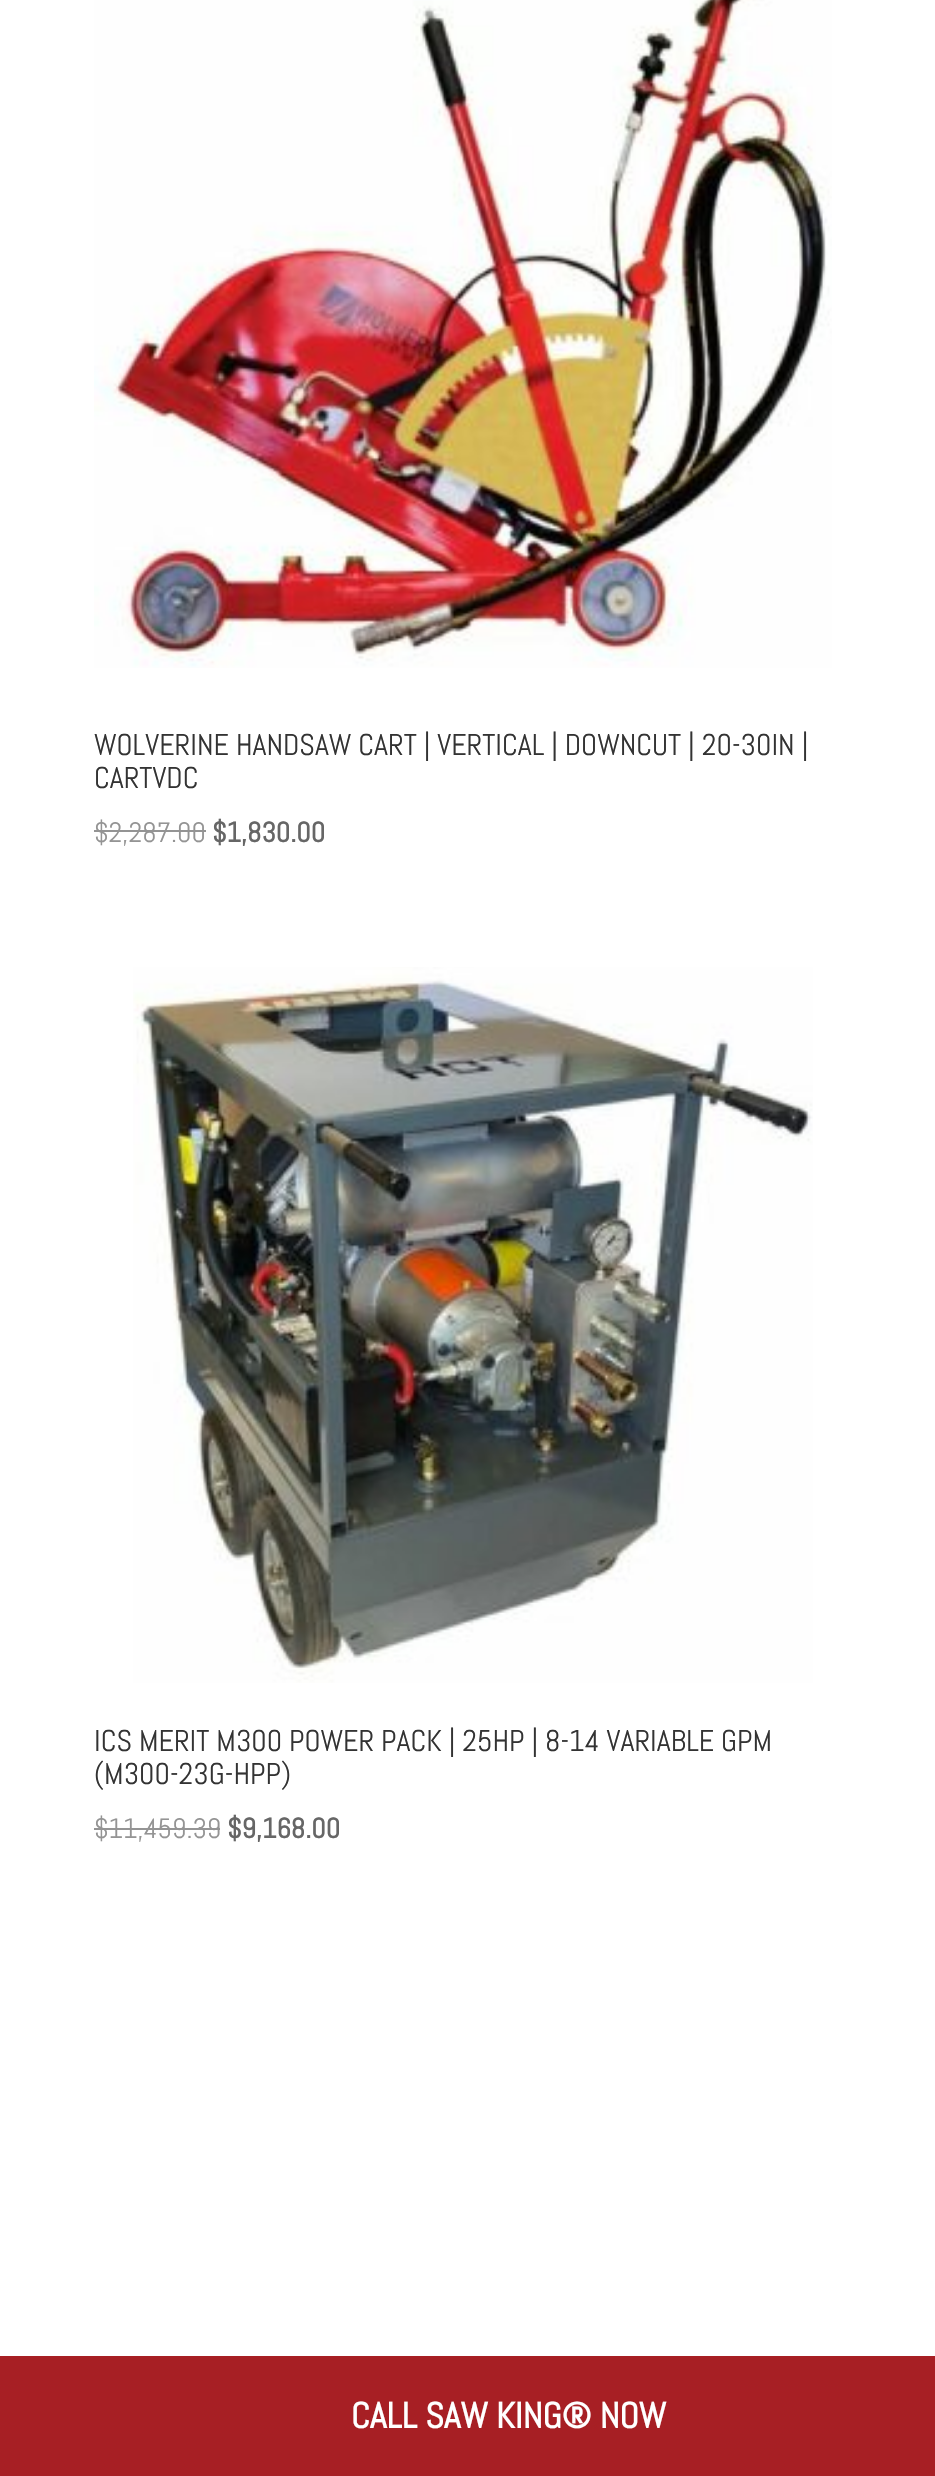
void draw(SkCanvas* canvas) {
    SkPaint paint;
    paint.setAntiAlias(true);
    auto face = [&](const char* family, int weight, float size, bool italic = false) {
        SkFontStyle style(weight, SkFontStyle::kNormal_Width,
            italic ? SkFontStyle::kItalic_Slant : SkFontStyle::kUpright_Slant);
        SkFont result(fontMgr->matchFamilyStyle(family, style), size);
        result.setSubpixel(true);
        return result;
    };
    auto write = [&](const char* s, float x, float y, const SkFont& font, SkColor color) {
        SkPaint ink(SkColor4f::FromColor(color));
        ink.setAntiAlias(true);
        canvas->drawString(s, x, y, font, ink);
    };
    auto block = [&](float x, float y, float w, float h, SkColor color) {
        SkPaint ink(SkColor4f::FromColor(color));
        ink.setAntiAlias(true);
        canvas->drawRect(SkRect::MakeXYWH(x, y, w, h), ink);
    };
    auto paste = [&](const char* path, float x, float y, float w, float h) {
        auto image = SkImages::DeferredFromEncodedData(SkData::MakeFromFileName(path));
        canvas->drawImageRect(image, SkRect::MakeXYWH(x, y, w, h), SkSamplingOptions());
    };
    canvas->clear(SK_ColorWHITE);
    paste("pic1.png", 94, 0, 738, 668);
    auto kFont1 = face("Abel", 400, 30);
    write("WOLVERINE HANDSAW CART | VERTICAL | DOWNCUT | 20-30IN |", 94, 755, kFont1, SkColorSetRGB(51, 51, 51));
    write("CARTVDC", 94, 788, kFont1, SkColorSetRGB(51, 51, 51));
    auto kFont2 = face("Abel", 400, 28);
    write("$2,287.00", 94, 842, kFont2, SkColorSetRGB(148, 148, 148));
    block(94, 830, 112, 2, SkColorSetRGB(148, 148, 148));
    auto kFont3 = face("Abel", 700, 28);
    write("$1,830.00", 212, 842, kFont3, SkColorSetRGB(102, 102, 102));
    paste("pic2.png", 133, 967, 680, 716);
    write("ICS MERIT M300 POWER PACK | 25HP | 8-14 VARIABLE GPM", 94, 1751, kFont1, SkColorSetRGB(51, 51, 51));
    write("(M300-23G-HPP)", 94, 1784, kFont1, SkColorSetRGB(51, 51, 51));
    write("$11,459.39", 94, 1838, kFont2, SkColorSetRGB(148, 148, 148));
    block(94, 1828, 126, 2, SkColorSetRGB(148, 148, 148));
    write("$9,168.00", 227, 1838, kFont3, SkColorSetRGB(102, 102, 102));
    block(0, 2356, 935, 120, SkColorSetRGB(167, 31, 36));
    auto kFont4 = face("Abel", 700, 36);
    write("CALL SAW KING® NOW", 351, 2428, kFont4, SK_ColorWHITE);
}
